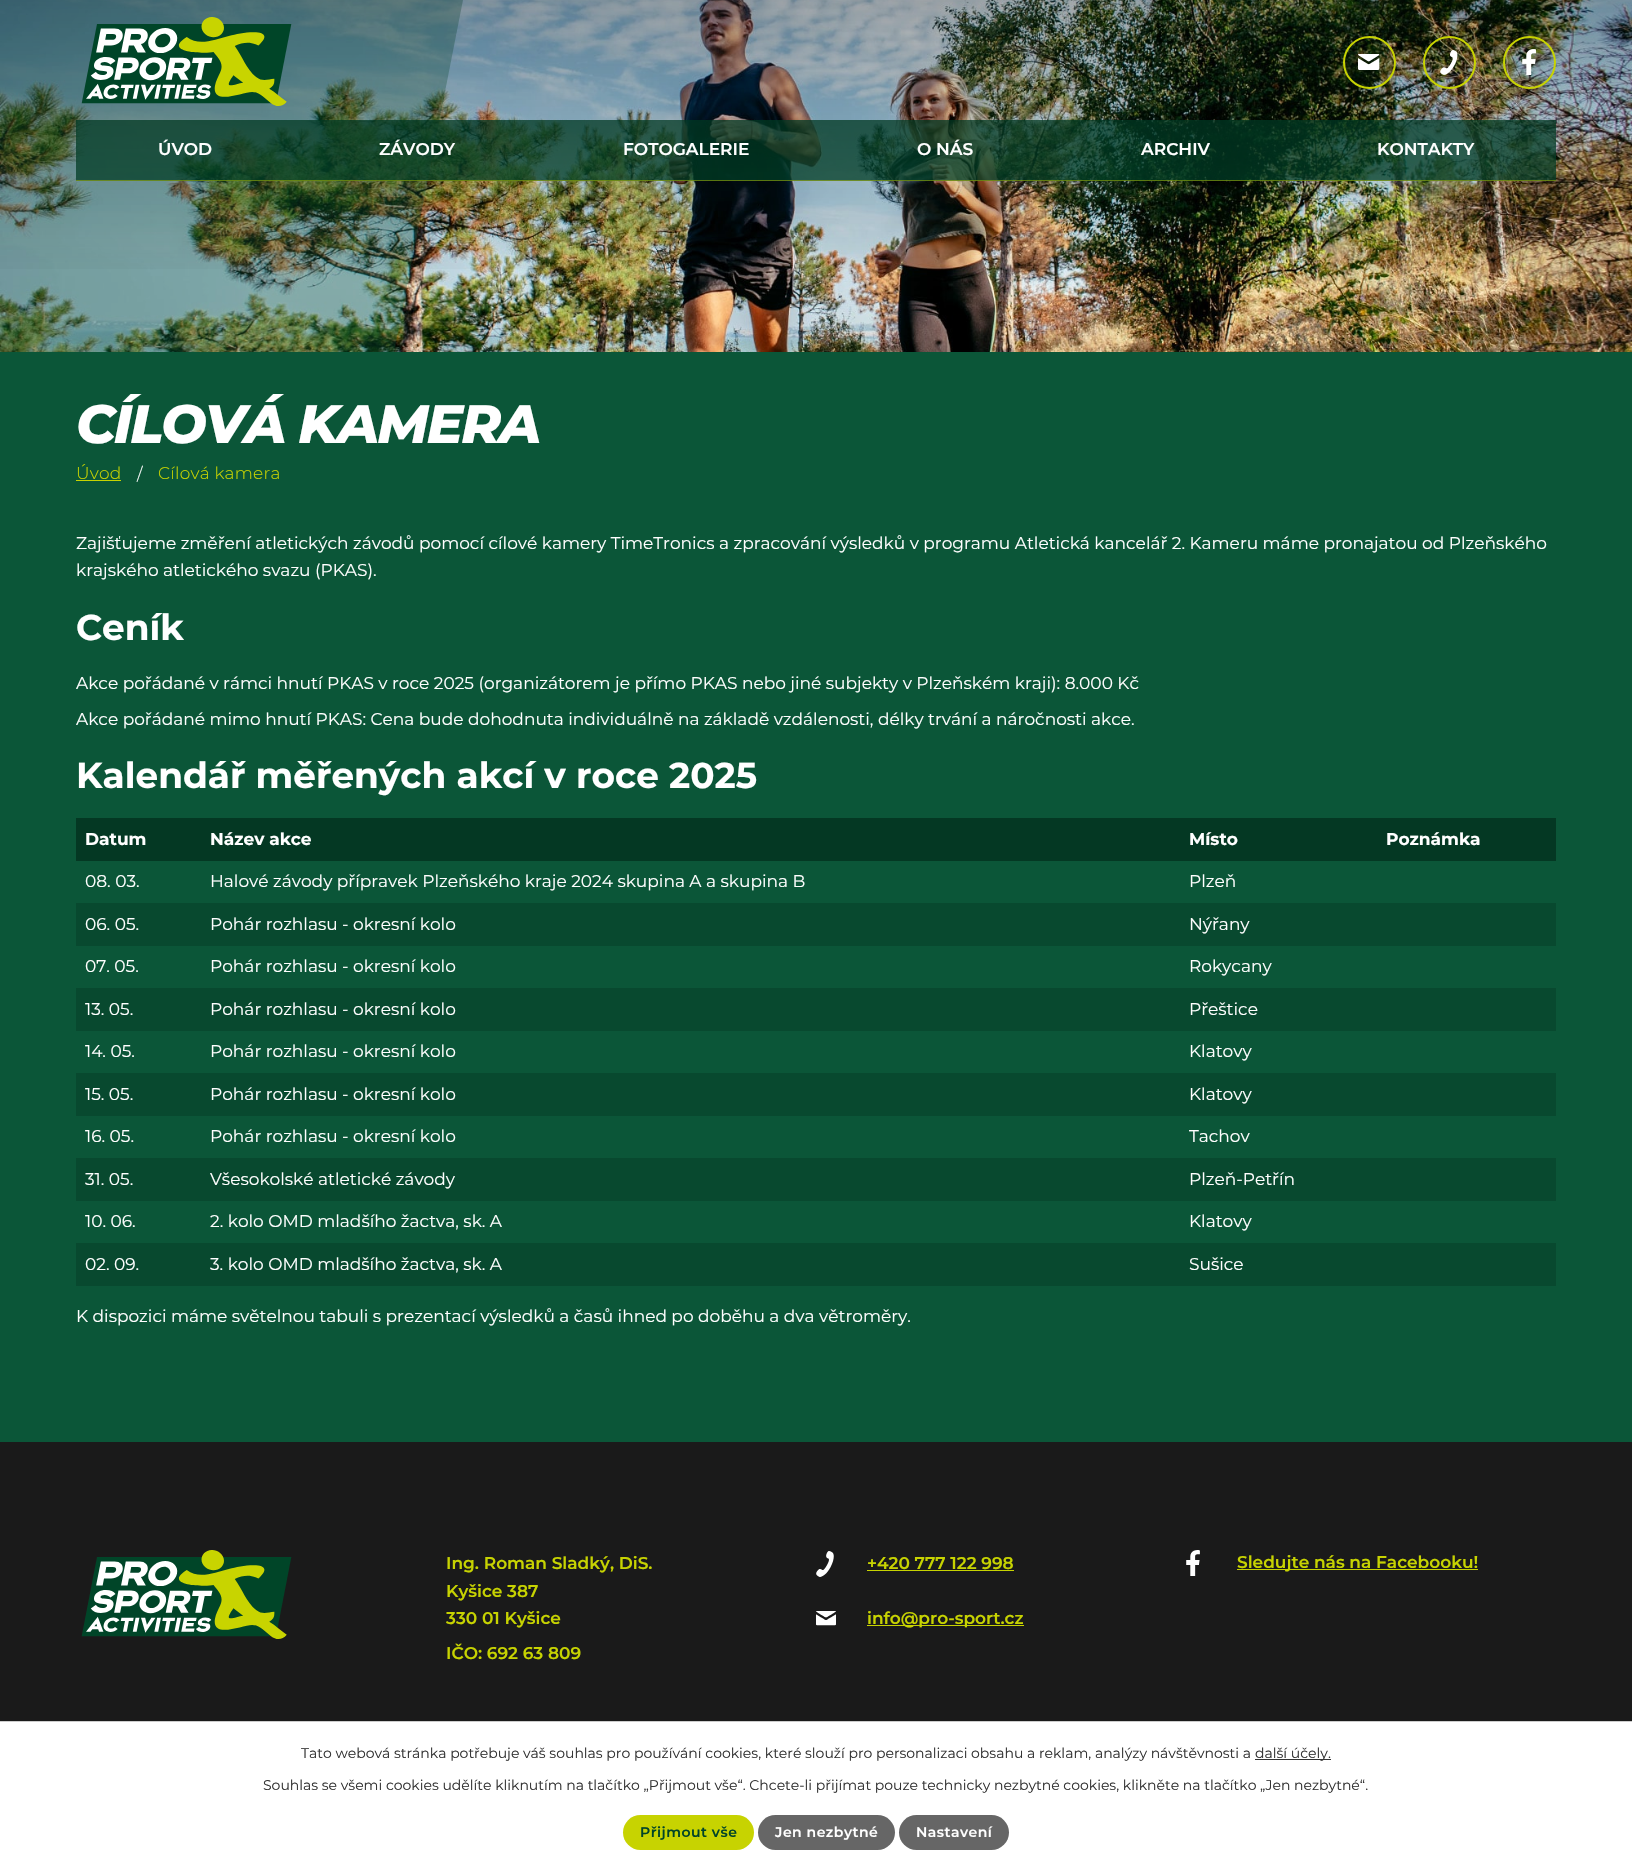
void draw(SkCanvas* canvas) {
    SkPaint paint;
    paint.setAntiAlias(true);
    auto face = [&](const char* family, int weight, float size, bool italic = false) {
        SkFontStyle style(weight, SkFontStyle::kNormal_Width,
            italic ? SkFontStyle::kItalic_Slant : SkFontStyle::kUpright_Slant);
        SkFont result(fontMgr->matchFamilyStyle(family, style), size);
        result.setSubpixel(true);
        return result;
    };
    auto write = [&](const char* s, float x, float y, const SkFont& font, SkColor color) {
        SkPaint ink(SkColor4f::FromColor(color));
        ink.setAntiAlias(true);
        canvas->drawString(s, x, y, font, ink);
    };
    auto writeSpaced = [&](const char* s, float x, float y, const SkFont& font, const SkPaint& ink, float letter, float word) {
        std::vector<SkGlyphID> glyphs(font.countText(s, strlen(s), SkTextEncoding::kUTF8));
        std::vector<float> xs(glyphs.size());
        font.textToGlyphs(s, strlen(s), SkTextEncoding::kUTF8, glyphs);
        font.getXPos(glyphs, xs, x);
        float extra = 0;
        for (size_t i = 0; i < glyphs.size(); i++) {
            xs[i] += extra;
            extra += letter + word * (glyphs[i] == font.unicharToGlyph(' '));
        }
        canvas->drawTextBlob(SkTextBlob::MakeFromPosHGlyphs(glyphs, xs, y, font), 0, 0, ink);
    };
    auto block = [&](float x, float y, float w, float h, SkColor color) {
        SkPaint ink(SkColor4f::FromColor(color));
        ink.setAntiAlias(true);
        canvas->drawRect(SkRect::MakeXYWH(x, y, w, h), ink);
    };
    auto card = [&](float x, float y, float w, float h, float radius, SkColor color) {
        SkPaint ink(SkColor4f::FromColor(color));
        ink.setAntiAlias(true);
        canvas->drawRoundRect(SkRect::MakeXYWH(x, y, w, h), radius, radius, ink);
    };
    auto paste = [&](const char* path, float x, float y, float w, float h) {
        auto image = SkImages::DeferredFromEncodedData(SkData::MakeFromFileName(path));
        canvas->drawImageRect(image, SkRect::MakeXYWH(x, y, w, h), SkSamplingOptions());
    };
    canvas->clear(SkColorSetRGB(26, 26, 26));
    paste("pic1.png", 0, 0, 1632, 352);
    paint.setColor(SkColorSetARGB(77, 11, 86, 56));
    canvas->drawPath(SkPathBuilder().moveTo(-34, 0).lineTo(463, 0).lineTo(394, 352).lineTo(-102, 352).close().detach(), paint);
    block(76, 120, 1480, 61, SkColorSetARGB(191, 0, 68, 41));
    block(76, 180, 1480, 1, SkColorSetARGB(128, 200, 211, 1));
    {
        const SkColor colors[] = {SkColorSetARGB(0, 0, 0, 0), SkColorSetARGB(77, 0, 0, 0)};
        const float stops[] = {0, 1};
        const SkPoint ends[] = {{816, 290}, {816, 0}};
        paint.setShader(SkGradientShader::MakeLinear(ends, colors, stops, 2, SkTileMode::kClamp));
        paint.setAlpha(255);
    }
    canvas->drawRect(SkRect::MakeXYWH(0, 0, 1632, 269), paint);
    paste("pic2.png", 81, 17, 211, 89);
    paint.setStyle(SkPaint::kStroke_Style);
    paint.setStrokeWidth(2);
    paint.setShader(nullptr);
    paint.setColor(SkColorSetRGB(199, 211, 1));
    canvas->drawCircle(1369.5f, 62.5f, 25.5f, paint);
    paste("pic3.png", 1358, 54, 22, 16);
    canvas->drawCircle(1449.5f, 62.5f, 25.5f, paint);
    paste("pic4.png", 1440, 50, 18, 25);
    canvas->drawCircle(1529.5f, 62.5f, 25.5f, paint);
    paste("pic5.png", 1522, 49, 14, 26);
    auto kFont1 = face("Montserrat", 600, 17);
    write("ÚVOD", 158, 155, kFont1, SK_ColorWHITE);
    write("ZÁVODY", 379, 155, kFont1, SK_ColorWHITE);
    write("FOTOGALERIE", 623, 155, kFont1, SK_ColorWHITE);
    write("O NÁS", 917, 155, kFont1, SK_ColorWHITE);
    write("ARCHIV", 1141, 155, kFont1, SK_ColorWHITE);
    write("KONTAKTY", 1377, 155, kFont1, SK_ColorWHITE);
    block(0, 352, 1632, 1090, SkColorSetRGB(11, 86, 56));
    auto kFont2 = face("Montserrat", 800, 54, true);
    paint.setStyle(SkPaint::kFill_Style);
    paint.setColor(SK_ColorWHITE);
    writeSpaced("CÍLOVÁ KAMERA", 76, 443, kFont2, paint, -2, 0);
    auto kFont3 = face("Montserrat", 300, 17);
    paint.setColor(SkColorSetRGB(199, 211, 1));
    writeSpaced("Úvod", 76, 479, kFont3, paint, 0.25f, 0);
    block(76, 480, 45, 1, SkColorSetRGB(199, 211, 1));
    paint.setColor(SK_ColorWHITE);
    writeSpaced("/", 137, 480, kFont3, paint, 0.25f, 0);
    paint.setColor(SkColorSetRGB(199, 211, 1));
    writeSpaced("Cílová kamera", 158, 479, kFont3, paint, 0.25f, 0);
    auto kFont4 = face("Montserrat", 400, 17);
    write("Zajišťujeme změření atletických závodů pomocí cílové kamery TimeTronics a zpracování výsledků v programu Atletická kancelář 2. Kameru máme pronajatou od Plzeňského", 76, 549, kFont4, SK_ColorWHITE);
    write("krajského atletického svazu (PKAS).", 76, 576, kFont4, SK_ColorWHITE);
    auto kFont5 = face("Montserrat", 700, 35.9f);
    write("Ceník", 76, 640, kFont5, SK_ColorWHITE);
    write("Akce pořádané v rámci hnutí PKAS v roce 2025 (organizátorem je přímo PKAS nebo jiné subjekty v Plzeňském kraji): 8.000 Kč", 76, 689, kFont4, SK_ColorWHITE);
    write("Akce pořádané mimo hnutí PKAS: Cena bude dohodnuta individuálně na základě vzdálenosti, délky trvání a náročnosti akce.", 76, 725, kFont4, SK_ColorWHITE);
    write("Kalendář měřených akcí v roce 2025", 76, 788, kFont5, SK_ColorWHITE);
    block(76, 818, 1480, 43, SkColorSetRGB(4, 56, 35));
    auto kFont6 = face("Montserrat", 700, 17);
    write("Datum", 85, 845, kFont6, SK_ColorWHITE);
    write("Název akce", 210, 845, kFont6, SK_ColorWHITE);
    write("Místo", 1189, 845, kFont6, SK_ColorWHITE);
    write("Poznámka", 1386, 845, kFont6, SK_ColorWHITE);
    write("08. 03.", 85, 887, kFont4, SK_ColorWHITE);
    write("Halové závody přípravek Plzeňského kraje 2024 skupina A a skupina B", 210, 887, kFont4, SK_ColorWHITE);
    write("Plzeň", 1189, 887, kFont4, SK_ColorWHITE);
    block(76, 903, 1480, 43, SkColorSetRGB(8, 73, 47));
    write("06. 05.", 85, 930, kFont4, SK_ColorWHITE);
    write("Pohár rozhlasu - okresní kolo", 210, 930, kFont4, SK_ColorWHITE);
    write("Nýřany", 1189, 930, kFont4, SK_ColorWHITE);
    write("07. 05.", 85, 972, kFont4, SK_ColorWHITE);
    write("Pohár rozhlasu - okresní kolo", 210, 972, kFont4, SK_ColorWHITE);
    write("Rokycany", 1189, 972, kFont4, SK_ColorWHITE);
    block(76, 988, 1480, 43, SkColorSetRGB(8, 73, 47));
    write("13. 05.", 85, 1015, kFont4, SK_ColorWHITE);
    write("Pohár rozhlasu - okresní kolo", 210, 1015, kFont4, SK_ColorWHITE);
    write("Přeštice", 1189, 1015, kFont4, SK_ColorWHITE);
    write("14. 05.", 85, 1057, kFont4, SK_ColorWHITE);
    write("Pohár rozhlasu - okresní kolo", 210, 1057, kFont4, SK_ColorWHITE);
    write("Klatovy", 1189, 1057, kFont4, SK_ColorWHITE);
    block(76, 1073, 1480, 43, SkColorSetRGB(8, 73, 47));
    write("15. 05.", 85, 1100, kFont4, SK_ColorWHITE);
    write("Pohár rozhlasu - okresní kolo", 210, 1100, kFont4, SK_ColorWHITE);
    write("Klatovy", 1189, 1100, kFont4, SK_ColorWHITE);
    write("16. 05.", 85, 1142, kFont4, SK_ColorWHITE);
    write("Pohár rozhlasu - okresní kolo", 210, 1142, kFont4, SK_ColorWHITE);
    write("Tachov", 1189, 1142, kFont4, SK_ColorWHITE);
    block(76, 1158, 1480, 43, SkColorSetRGB(8, 73, 47));
    write("31. 05.", 85, 1185, kFont4, SK_ColorWHITE);
    write("Všesokolské atletické závody", 210, 1185, kFont4, SK_ColorWHITE);
    write("Plzeň-Petřín", 1189, 1185, kFont4, SK_ColorWHITE);
    write("10. 06.", 85, 1227, kFont4, SK_ColorWHITE);
    write("2. kolo OMD mladšího žactva, sk. A", 210, 1227, kFont4, SK_ColorWHITE);
    write("Klatovy", 1189, 1227, kFont4, SK_ColorWHITE);
    block(76, 1243, 1480, 43, SkColorSetRGB(8, 73, 47));
    write("02. 09.", 85, 1270, kFont4, SK_ColorWHITE);
    write("3. kolo OMD mladšího žactva, sk. A", 210, 1270, kFont4, SK_ColorWHITE);
    write("Sušice", 1189, 1270, kFont4, SK_ColorWHITE);
    write("K dispozici máme světelnou tabuli s prezentací výsledků a časů ihned po doběhu a dva větroměry.", 76, 1322, kFont4, SK_ColorWHITE);
    paste("pic6.png", 81, 1550, 211, 89);
    write("Ing. Roman Sladký, DiS.", 446, 1569, kFont1, SkColorSetRGB(199, 211, 1));
    write("Kyšice 387", 446, 1597, kFont1, SkColorSetRGB(199, 211, 1));
    write("330 01 Kyšice", 446, 1624, kFont1, SkColorSetRGB(199, 211, 1));
    write("IČO: 692 63 809", 446, 1659, kFont1, SkColorSetRGB(199, 211, 1));
    paste("pic7.png", 816, 1551, 18, 26);
    write("+420 777 122 998", 867, 1569, kFont1, SkColorSetRGB(199, 211, 1));
    block(867, 1570, 147, 1, SkColorSetRGB(199, 211, 1));
    paste("pic8.png", 816, 1611, 20, 15);
    block(867, 1625, 157, 1, SkColorSetRGB(199, 211, 1));
    write("info@pro-sport.cz", 867, 1624, kFont1, SkColorSetRGB(199, 211, 1));
    paste("pic9.png", 1186, 1550, 14, 26);
    block(1237, 1569, 241, 1, SkColorSetRGB(199, 211, 1));
    write("Sledujte nás na Facebooku!", 1237, 1568, kFont1, SkColorSetRGB(199, 211, 1));
    block(0, 1722, 1632, 146, SK_ColorWHITE);
    block(0, 1721, 1632, 1, SkColorSetRGB(204, 204, 204));
    auto kFont7 = face("Montserrat", 400, 14);
    write("Tato webová stránka potřebuje váš souhlas pro používání cookies, které slouží pro personalizaci obsahu a reklam, analýzy návštěvnosti a", 301, 1758, kFont7, SkColorSetRGB(51, 51, 51));
    block(1255, 1759, 76, 1, SkColorSetRGB(51, 51, 51));
    write("další účely.", 1255, 1758, kFont7, SkColorSetRGB(51, 51, 51));
    write("Souhlas se všemi cookies udělíte kliknutím na tlačítko „Přijmout vše“. Chcete-li přijímat pouze technicky nezbytné cookies, klikněte na tlačítko „Jen nezbytné“.", 263, 1790, kFont7, SkColorSetRGB(51, 51, 51));
    card(623, 1815, 131, 35, 17.5f, SkColorSetRGB(199, 211, 1));
    auto kFont8 = face("Montserrat", 600, 14);
    paint.setColor(SkColorSetRGB(0, 68, 41));
    writeSpaced("Přijmout vše", 640, 1837, kFont8, paint, 0.5f, 0);
    card(758, 1815, 137, 35, 17.5f, SkColorSetRGB(102, 102, 102));
    paint.setColor(SK_ColorWHITE);
    writeSpaced("Jen nezbytné", 775, 1837, kFont8, paint, 0.5f, 0);
    card(899, 1815, 110, 35, 17.5f, SkColorSetRGB(102, 102, 102));
    writeSpaced("Nastavení", 916, 1837, kFont8, paint, 0.5f, 0);
}
